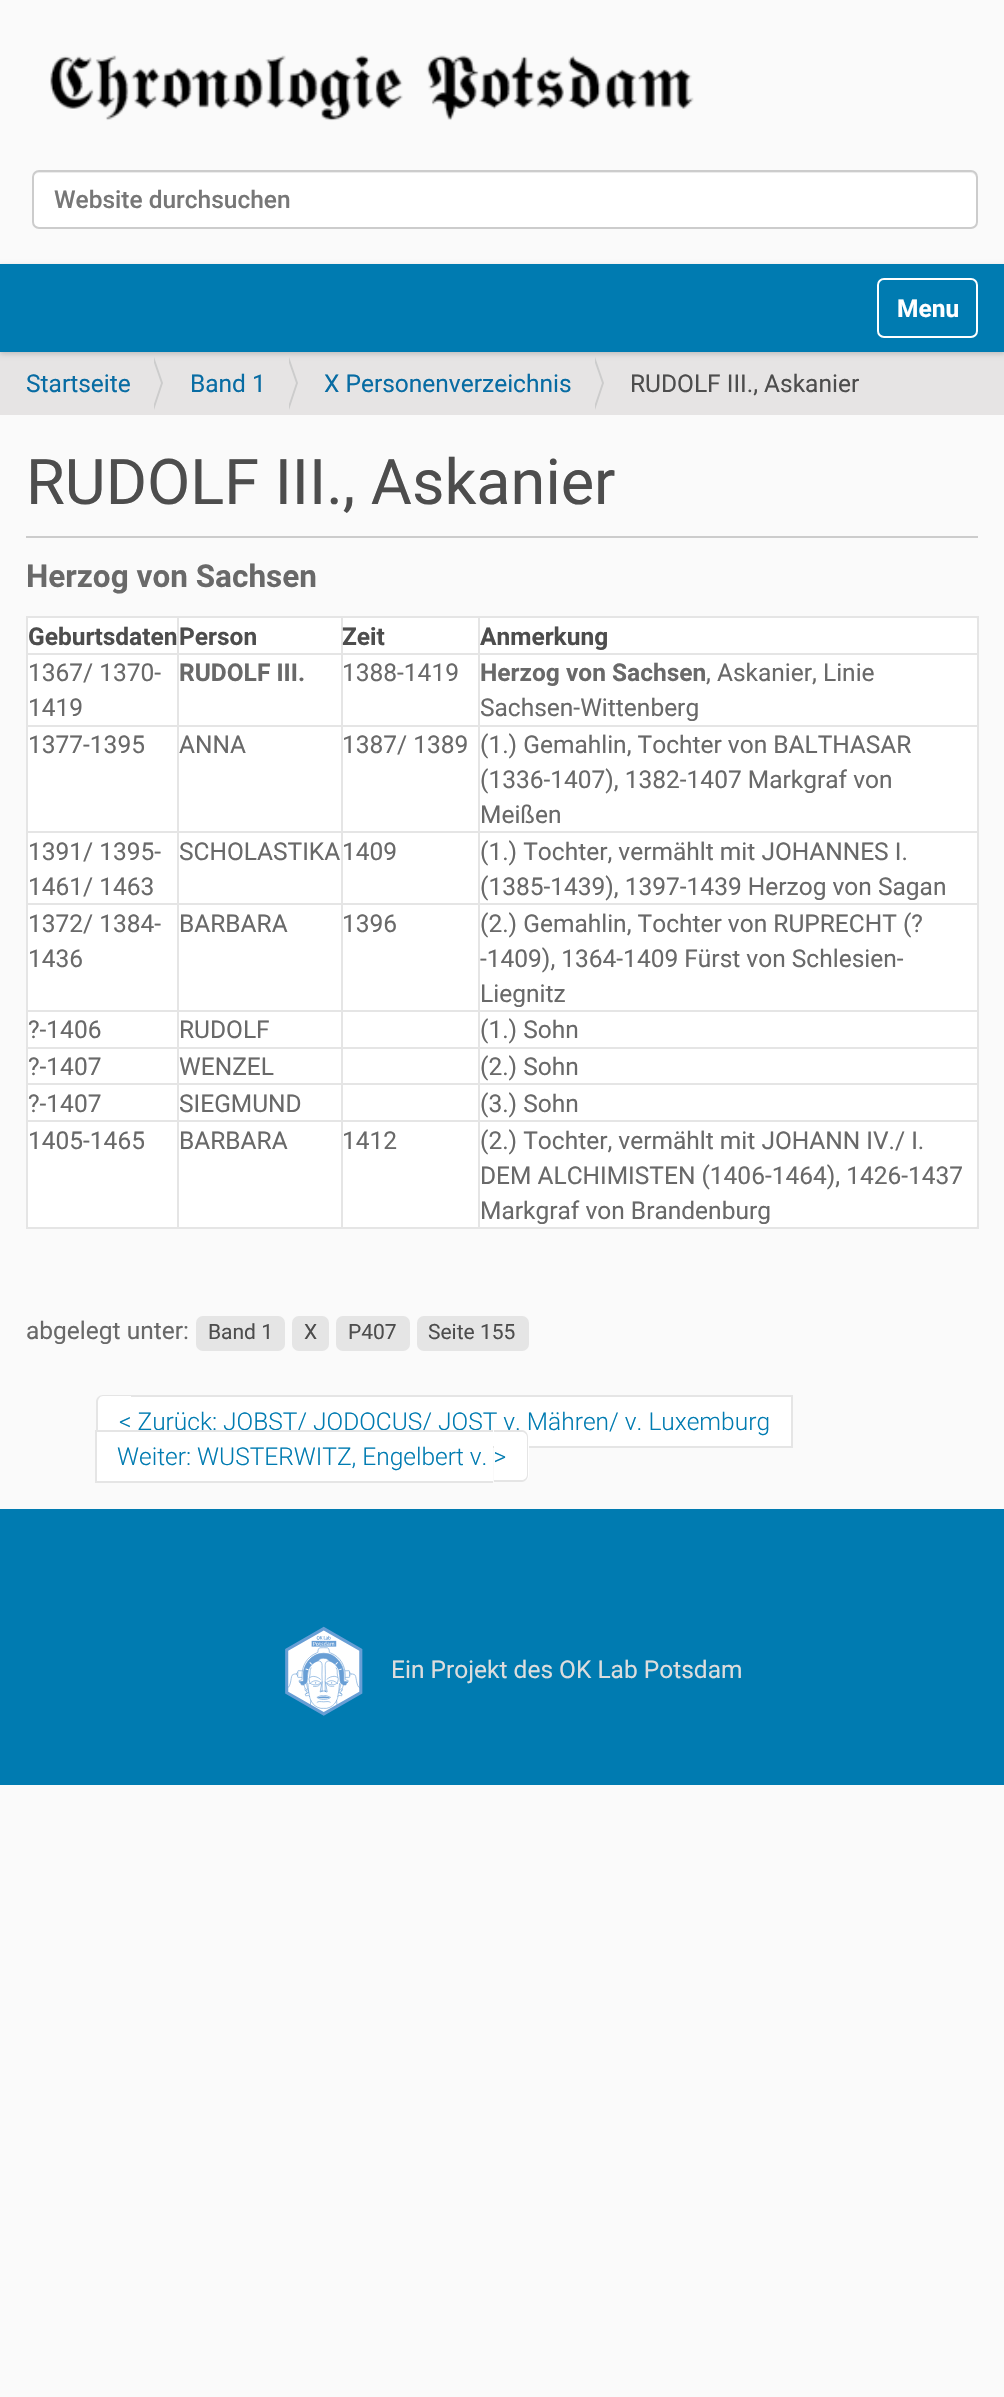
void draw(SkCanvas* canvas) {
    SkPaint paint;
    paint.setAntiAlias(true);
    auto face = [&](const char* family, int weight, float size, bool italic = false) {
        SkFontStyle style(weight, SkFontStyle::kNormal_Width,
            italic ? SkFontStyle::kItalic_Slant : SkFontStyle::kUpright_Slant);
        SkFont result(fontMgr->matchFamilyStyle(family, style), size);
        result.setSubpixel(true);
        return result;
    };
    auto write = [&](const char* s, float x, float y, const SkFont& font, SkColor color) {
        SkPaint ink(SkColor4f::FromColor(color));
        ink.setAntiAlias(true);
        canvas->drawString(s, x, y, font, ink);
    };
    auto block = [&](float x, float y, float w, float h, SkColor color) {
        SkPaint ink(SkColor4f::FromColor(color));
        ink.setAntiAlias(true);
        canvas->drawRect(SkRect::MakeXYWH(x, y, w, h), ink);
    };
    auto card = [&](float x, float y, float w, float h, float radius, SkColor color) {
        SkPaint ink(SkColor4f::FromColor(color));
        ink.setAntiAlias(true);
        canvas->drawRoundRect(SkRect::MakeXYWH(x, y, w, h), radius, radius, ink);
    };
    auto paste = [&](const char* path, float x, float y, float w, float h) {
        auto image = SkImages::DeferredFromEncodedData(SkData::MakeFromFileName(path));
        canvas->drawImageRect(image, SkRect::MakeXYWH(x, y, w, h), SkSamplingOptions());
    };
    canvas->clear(SkColorSetRGB(250, 250, 250));
    paste("pic1.png", 50, 55, 644, 66);
    card(32, 170, 946, 59, 7, SK_ColorWHITE);
    paint.setColor(SkColorSetRGB(236, 236, 236));
    canvas->drawPath(SkPathBuilder().moveTo(38, 173).lineTo(971, 173).cubicTo(974, 173, 976, 176, 976, 178).lineTo(976, 224).lineTo(975, 227).cubicTo(976, 226, 977, 224, 977, 223).lineTo(977, 177).cubicTo(977, 174, 975, 172, 972, 172).lineTo(38, 172).cubicTo(35, 172, 33, 174, 33, 177).lineTo(33, 178).cubicTo(33, 176, 36, 173, 38, 173).close().detach(), paint);
    paint.setStyle(SkPaint::kStroke_Style);
    paint.setStrokeWidth(2);
    paint.setColor(SkColorSetRGB(204, 204, 204));
    canvas->drawRoundRect(SkRect::MakeXYWH(33, 171, 944, 57), 6, 6, paint);
    auto kFont1 = face("Roboto", 500, 24.5f);
    write("Website durchsuchen", 54, 208, kFont1, SkColorSetRGB(119, 119, 119));
    block(0, 352, 1004, 63, SkColorSetRGB(230, 228, 228));
    paint.setStyle(SkPaint::kFill_Style);
    paint.setColor(SkColorSetARGB(43, 0, 0, 0));
    paint.setMaskFilter(SkMaskFilter::MakeBlur(kNormal_SkBlurStyle, 2.5f));
    canvas->drawRect(SkRect::MakeXYWH(0, 266, 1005, 88), paint);
    paint.setMaskFilter(nullptr);
    block(0, 264, 1004, 88, SkColorSetRGB(0, 123, 177));
    paint.setStyle(SkPaint::kStroke_Style);
    paint.setColor(SK_ColorWHITE);
    canvas->drawRoundRect(SkRect::MakeXYWH(878, 279, 99, 58), 6, 6, paint);
    auto kFont2 = face("Roboto", 700, 24.5f);
    write("Menu", 897, 317, kFont2, SK_ColorWHITE);
    auto kFont3 = face("Roboto", 400, 24.5f);
    write("Startseite", 26, 392, kFont3, SkColorSetRGB(8, 108, 163));
    paint.setStyle(SkPaint::kFill_Style);
    paint.setColor(SkColorSetRGB(204, 204, 204));
    canvas->drawPath(SkPathBuilder().moveTo(154, 410).lineTo(154, 357).lineTo(163, 383).close().detach(), paint);
    paint.setColor(SkColorSetRGB(230, 228, 228));
    canvas->drawPath(SkPathBuilder().moveTo(152, 410).lineTo(152, 357).lineTo(161, 383).close().detach(), paint);
    write("Band 1", 190, 392, kFont3, SkColorSetRGB(8, 108, 163));
    paint.setColor(SkColorSetRGB(204, 204, 204));
    canvas->drawPath(SkPathBuilder().moveTo(289, 410).lineTo(289, 357).lineTo(298, 383).close().detach(), paint);
    paint.setColor(SkColorSetRGB(230, 228, 228));
    canvas->drawPath(SkPathBuilder().moveTo(287, 410).lineTo(287, 357).lineTo(296, 383).close().detach(), paint);
    write("X Personenverzeichnis", 324, 392, kFont3, SkColorSetRGB(8, 108, 163));
    paint.setColor(SkColorSetRGB(204, 204, 204));
    canvas->drawPath(SkPathBuilder().moveTo(595, 410).lineTo(595, 357).lineTo(604, 383).close().detach(), paint);
    paint.setColor(SkColorSetRGB(230, 228, 228));
    canvas->drawPath(SkPathBuilder().moveTo(593, 410).lineTo(593, 357).lineTo(602, 383).close().detach(), paint);
    write("RUDOLF III., Askanier", 630, 392, kFont3, SkColorSetRGB(77, 77, 77));
    block(26, 536, 952, 2, SkColorSetRGB(204, 204, 204));
    auto kFont4 = face("Roboto", 400, 63);
    write("RUDOLF III., Askanier", 26, 504, kFont4, SkColorSetRGB(77, 77, 77));
    auto kFont5 = face("Roboto", 700, 31.5f);
    write("Herzog von Sachsen", 26, 587, kFont5, SkColorSetRGB(105, 105, 105));
    card(26, 616, 952, 613, 7, SK_ColorWHITE);
    block(26, 616, 952, 2, SkColorSetRGB(229, 229, 229));
    block(977, 616, 2, 613, SkColorSetRGB(229, 229, 229));
    block(26, 1227, 952, 2, SkColorSetRGB(229, 229, 229));
    block(26, 616, 2, 613, SkColorSetRGB(229, 229, 229));
    write("Geburtsdaten", 28, 645, kFont2, SkColorSetRGB(77, 77, 77));
    block(478, 653, 500, 2, SkColorSetRGB(229, 229, 229));
    block(478, 725, 500, 2, SkColorSetRGB(229, 229, 229));
    block(478, 831, 500, 2, SkColorSetRGB(229, 229, 229));
    block(478, 903, 500, 2, SkColorSetRGB(229, 229, 229));
    block(478, 1010, 500, 2, SkColorSetRGB(229, 229, 229));
    block(478, 1047, 500, 2, SkColorSetRGB(229, 229, 229));
    block(478, 1083, 500, 2, SkColorSetRGB(229, 229, 229));
    block(478, 1120, 500, 2, SkColorSetRGB(229, 229, 229));
    block(478, 1120, 2, 109, SkColorSetRGB(229, 229, 229));
    block(341, 1120, 139, 2, SkColorSetRGB(229, 229, 229));
    block(478, 1083, 2, 39, SkColorSetRGB(229, 229, 229));
    block(341, 1083, 139, 2, SkColorSetRGB(229, 229, 229));
    block(478, 1047, 2, 38, SkColorSetRGB(229, 229, 229));
    block(341, 1047, 139, 2, SkColorSetRGB(229, 229, 229));
    block(478, 1010, 2, 38, SkColorSetRGB(229, 229, 229));
    block(341, 1010, 139, 2, SkColorSetRGB(229, 229, 229));
    block(478, 903, 2, 109, SkColorSetRGB(229, 229, 229));
    block(341, 903, 139, 2, SkColorSetRGB(229, 229, 229));
    block(478, 831, 2, 74, SkColorSetRGB(229, 229, 229));
    block(341, 831, 139, 2, SkColorSetRGB(229, 229, 229));
    block(478, 725, 2, 108, SkColorSetRGB(229, 229, 229));
    block(341, 725, 139, 2, SkColorSetRGB(229, 229, 229));
    block(478, 653, 2, 73, SkColorSetRGB(229, 229, 229));
    block(341, 653, 139, 2, SkColorSetRGB(229, 229, 229));
    block(341, 1120, 2, 109, SkColorSetRGB(229, 229, 229));
    block(177, 1120, 166, 2, SkColorSetRGB(229, 229, 229));
    block(341, 1083, 2, 39, SkColorSetRGB(229, 229, 229));
    block(177, 1083, 166, 2, SkColorSetRGB(229, 229, 229));
    block(341, 1047, 2, 38, SkColorSetRGB(229, 229, 229));
    block(177, 1047, 166, 2, SkColorSetRGB(229, 229, 229));
    block(341, 1010, 2, 38, SkColorSetRGB(229, 229, 229));
    block(177, 1010, 166, 2, SkColorSetRGB(229, 229, 229));
    block(341, 903, 2, 109, SkColorSetRGB(229, 229, 229));
    block(177, 903, 166, 2, SkColorSetRGB(229, 229, 229));
    block(341, 831, 2, 74, SkColorSetRGB(229, 229, 229));
    block(177, 831, 166, 2, SkColorSetRGB(229, 229, 229));
    block(341, 725, 2, 108, SkColorSetRGB(229, 229, 229));
    block(177, 725, 166, 2, SkColorSetRGB(229, 229, 229));
    block(341, 653, 2, 73, SkColorSetRGB(229, 229, 229));
    block(177, 653, 166, 2, SkColorSetRGB(229, 229, 229));
    block(177, 1120, 2, 109, SkColorSetRGB(229, 229, 229));
    block(26, 1120, 153, 2, SkColorSetRGB(229, 229, 229));
    block(177, 1083, 2, 39, SkColorSetRGB(229, 229, 229));
    block(26, 1083, 153, 2, SkColorSetRGB(229, 229, 229));
    block(177, 1047, 2, 38, SkColorSetRGB(229, 229, 229));
    block(26, 1047, 153, 2, SkColorSetRGB(229, 229, 229));
    block(177, 1010, 2, 38, SkColorSetRGB(229, 229, 229));
    block(26, 1010, 153, 2, SkColorSetRGB(229, 229, 229));
    block(177, 903, 2, 109, SkColorSetRGB(229, 229, 229));
    block(26, 903, 153, 2, SkColorSetRGB(229, 229, 229));
    block(177, 831, 2, 74, SkColorSetRGB(229, 229, 229));
    block(26, 831, 153, 2, SkColorSetRGB(229, 229, 229));
    block(177, 725, 2, 108, SkColorSetRGB(229, 229, 229));
    block(26, 725, 153, 2, SkColorSetRGB(229, 229, 229));
    block(177, 653, 2, 73, SkColorSetRGB(229, 229, 229));
    block(26, 653, 153, 2, SkColorSetRGB(229, 229, 229));
    block(177, 616, 2, 39, SkColorSetRGB(229, 229, 229));
    write("Person", 179, 645, kFont2, SkColorSetRGB(77, 77, 77));
    block(341, 616, 2, 39, SkColorSetRGB(229, 229, 229));
    write("Zeit", 342, 645, kFont2, SkColorSetRGB(77, 77, 77));
    block(478, 616, 2, 39, SkColorSetRGB(229, 229, 229));
    write("Anmerkung", 480, 645, kFont2, SkColorSetRGB(77, 77, 77));
    write("1367/ 1370-", 28, 681, kFont3, SkColorSetRGB(105, 105, 105));
    write("1419", 28, 716, kFont3, SkColorSetRGB(105, 105, 105));
    write("RUDOLF III.", 179, 681, kFont2, SkColorSetRGB(105, 105, 105));
    write("1388-1419", 342, 681, kFont3, SkColorSetRGB(105, 105, 105));
    write("Herzog von Sachsen", 480, 681, kFont2, SkColorSetRGB(105, 105, 105));
    write(", Askanier, Linie", 706, 681, kFont3, SkColorSetRGB(105, 105, 105));
    write("Sachsen-Wittenberg", 480, 716, kFont3, SkColorSetRGB(105, 105, 105));
    write("1377-1395", 28, 753, kFont3, SkColorSetRGB(105, 105, 105));
    write("ANNA", 179, 753, kFont3, SkColorSetRGB(105, 105, 105));
    write("1387/ 1389", 342, 753, kFont3, SkColorSetRGB(105, 105, 105));
    write("(1.) Gemahlin, Tochter von BALTHASAR", 480, 753, kFont3, SkColorSetRGB(105, 105, 105));
    write("(1336-1407), 1382-1407 Markgraf von", 480, 788, kFont3, SkColorSetRGB(105, 105, 105));
    write("Meißen", 480, 823, kFont3, SkColorSetRGB(105, 105, 105));
    write("1391/ 1395-", 28, 860, kFont3, SkColorSetRGB(105, 105, 105));
    write("1461/ 1463", 28, 895, kFont3, SkColorSetRGB(105, 105, 105));
    write("SCHOLASTIKA", 179, 860, kFont3, SkColorSetRGB(105, 105, 105));
    write("1409", 342, 860, kFont3, SkColorSetRGB(105, 105, 105));
    write("(1.) Tochter, vermählt mit JOHANNES I.", 480, 860, kFont3, SkColorSetRGB(105, 105, 105));
    write("(1385-1439), 1397-1439 Herzog von Sagan", 480, 895, kFont3, SkColorSetRGB(105, 105, 105));
    write("1372/ 1384-", 28, 932, kFont3, SkColorSetRGB(105, 105, 105));
    write("1436", 28, 967, kFont3, SkColorSetRGB(105, 105, 105));
    write("BARBARA", 179, 932, kFont3, SkColorSetRGB(105, 105, 105));
    write("1396", 342, 932, kFont3, SkColorSetRGB(105, 105, 105));
    write("(2.) Gemahlin, Tochter von RUPRECHT (?", 480, 932, kFont3, SkColorSetRGB(105, 105, 105));
    write("-1409), 1364-1409 Fürst von Schlesien-", 480, 967, kFont3, SkColorSetRGB(105, 105, 105));
    write("Liegnitz", 480, 1002, kFont3, SkColorSetRGB(105, 105, 105));
    write("?-1406", 28, 1038, kFont3, SkColorSetRGB(105, 105, 105));
    write("RUDOLF", 179, 1038, kFont3, SkColorSetRGB(105, 105, 105));
    write("(1.) Sohn", 480, 1038, kFont3, SkColorSetRGB(105, 105, 105));
    write("?-1407", 28, 1075, kFont3, SkColorSetRGB(105, 105, 105));
    write("WENZEL", 179, 1075, kFont3, SkColorSetRGB(105, 105, 105));
    write("(2.) Sohn", 480, 1075, kFont3, SkColorSetRGB(105, 105, 105));
    write("?-1407", 28, 1112, kFont3, SkColorSetRGB(105, 105, 105));
    write("SIEGMUND", 179, 1112, kFont3, SkColorSetRGB(105, 105, 105));
    write("(3.) Sohn", 480, 1112, kFont3, SkColorSetRGB(105, 105, 105));
    write("1405-1465", 28, 1149, kFont3, SkColorSetRGB(105, 105, 105));
    write("BARBARA", 179, 1149, kFont3, SkColorSetRGB(105, 105, 105));
    write("1412", 342, 1149, kFont3, SkColorSetRGB(105, 105, 105));
    write("(2.) Tochter, vermählt mit JOHANN IV./ I.", 480, 1149, kFont3, SkColorSetRGB(105, 105, 105));
    write("DEM ALCHIMISTEN (1406-1464), 1426-1437", 480, 1184, kFont3, SkColorSetRGB(105, 105, 105));
    write("Markgraf von Brandenburg", 480, 1219, kFont3, SkColorSetRGB(105, 105, 105));
    write("abgelegt unter:", 26, 1339, kFont3, SkColorSetRGB(105, 105, 105));
    card(196, 1316, 89, 35, 7, SkColorSetRGB(229, 229, 229));
    auto kFont6 = face("Roboto", 400, 21);
    write("Band 1", 208, 1339, kFont6, SkColorSetRGB(77, 77, 77));
    card(292, 1316, 37, 35, 7, SkColorSetRGB(229, 229, 229));
    write("X", 304, 1339, kFont6, SkColorSetRGB(77, 77, 77));
    card(336, 1316, 74, 35, 7, SkColorSetRGB(229, 229, 229));
    write("P407", 348, 1339, kFont6, SkColorSetRGB(77, 77, 77));
    card(417, 1316, 112, 35, 7, SkColorSetRGB(229, 229, 229));
    write("Seite 155", 428, 1339, kFont6, SkColorSetRGB(77, 77, 77));
    paint.setColor(SK_ColorWHITE);
    canvas->drawPath(SkPathBuilder().moveTo(103, 1395).lineTo(131, 1395).lineTo(131, 1447).lineTo(103, 1447).cubicTo(99, 1447, 96, 1444, 96, 1440).lineTo(96, 1402).cubicTo(96, 1398, 99, 1395, 103, 1395).close().detach(), paint);
    paint.setColor(SkColorSetRGB(229, 229, 229));
    canvas->drawPath(SkPathBuilder(SkPathFillType::kEvenOdd).moveTo(103, 1395).lineTo(131, 1395).lineTo(131, 1447).lineTo(103, 1447).cubicTo(99, 1447, 96, 1444, 96, 1440).lineTo(96, 1402).cubicTo(96, 1398, 99, 1395, 103, 1395).close().moveTo(103, 1396).lineTo(131, 1396).lineTo(131, 1446).lineTo(103, 1446).cubicTo(100, 1446, 98, 1443, 98, 1440).lineTo(98, 1402).cubicTo(98, 1399, 100, 1396, 103, 1396).close().detach(), paint);
    block(131, 1395, 7, 35, SK_ColorWHITE);
    block(138, 1397, 653, 49, SK_ColorWHITE);
    auto kFont7 = face("Roboto", 300, 24.5f);
    write("< Zurück: JOBST/ JODOCUS/ JOST v. Mähren/ v. Luxemburg", 119, 1430, kFont7, SkColorSetRGB(0, 123, 177));
    block(131, 1395, 662, 2, SkColorSetRGB(229, 229, 229));
    block(791, 1395, 2, 52, SkColorSetRGB(229, 229, 229));
    block(493, 1446, 300, 2, SkColorSetRGB(229, 229, 229));
    block(97, 1432, 391, 49, SK_ColorWHITE);
    block(488, 1446, 5, 36, SK_ColorWHITE);
    paint.setColor(SK_ColorWHITE);
    canvas->drawPath(SkPathBuilder().moveTo(494, 1430).lineTo(522, 1430).cubicTo(526, 1430, 529, 1433, 529, 1437).lineTo(529, 1475).cubicTo(529, 1479, 526, 1482, 522, 1482).lineTo(494, 1482).close().detach(), paint);
    paint.setColor(SkColorSetRGB(229, 229, 229));
    canvas->drawPath(SkPathBuilder(SkPathFillType::kEvenOdd).moveTo(494, 1430).lineTo(522, 1430).cubicTo(525, 1430, 528, 1433, 528, 1437).lineTo(528, 1475).cubicTo(528, 1479, 525, 1482, 522, 1482).lineTo(494, 1482).close().moveTo(494, 1432).lineTo(522, 1432).cubicTo(524, 1432, 527, 1434, 527, 1437).lineTo(527, 1475).cubicTo(527, 1478, 524, 1480, 522, 1480).lineTo(494, 1480).close().detach(), paint);
    write("Weiter: WUSTERWITZ, Engelbert v. >", 117, 1465, kFont7, SkColorSetRGB(0, 123, 177));
    block(95, 1430, 398, 2, SkColorSetRGB(229, 229, 229));
    block(95, 1481, 393, 2, SkColorSetRGB(229, 229, 229));
    block(95, 1430, 2, 52, SkColorSetRGB(229, 229, 229));
    block(488, 1481, 5, 2, SkColorSetRGB(229, 229, 229));
    block(0, 1509, 1004, 276, SkColorSetRGB(0, 123, 177));
    paste("pic2.png", 285, 1626, 78, 90);
    write("Ein Projekt des OK Lab Potsdam", 391, 1678, kFont3, SkColorSetRGB(221, 221, 221));
}
